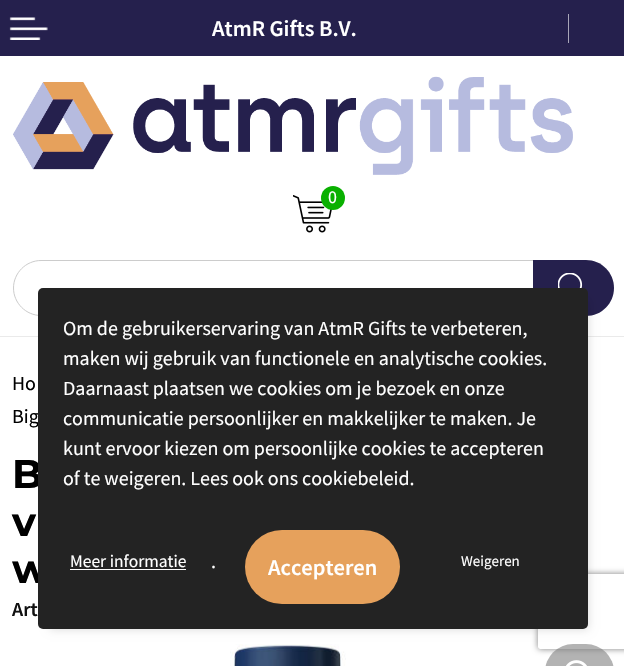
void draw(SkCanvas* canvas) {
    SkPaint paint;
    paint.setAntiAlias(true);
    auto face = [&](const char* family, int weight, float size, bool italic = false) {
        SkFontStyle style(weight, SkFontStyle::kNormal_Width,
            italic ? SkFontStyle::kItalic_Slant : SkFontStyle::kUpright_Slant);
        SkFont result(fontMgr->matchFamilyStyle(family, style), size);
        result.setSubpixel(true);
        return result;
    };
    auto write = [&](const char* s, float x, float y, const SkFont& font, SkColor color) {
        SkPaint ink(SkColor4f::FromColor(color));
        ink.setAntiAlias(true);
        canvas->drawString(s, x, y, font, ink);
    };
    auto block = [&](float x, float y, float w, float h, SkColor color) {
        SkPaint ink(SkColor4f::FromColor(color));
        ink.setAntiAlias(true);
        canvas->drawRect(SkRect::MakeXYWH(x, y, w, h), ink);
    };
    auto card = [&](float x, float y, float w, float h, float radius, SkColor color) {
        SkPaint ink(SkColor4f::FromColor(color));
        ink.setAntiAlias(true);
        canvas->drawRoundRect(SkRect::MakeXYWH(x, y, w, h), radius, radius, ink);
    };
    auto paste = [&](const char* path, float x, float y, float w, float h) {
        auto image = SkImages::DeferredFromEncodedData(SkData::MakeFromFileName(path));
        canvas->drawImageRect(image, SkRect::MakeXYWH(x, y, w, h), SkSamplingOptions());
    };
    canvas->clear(SK_ColorWHITE);
    block(0, 0, 624, 56, SkColorSetRGB(37, 32, 77));
    paste("pic1.png", 9, 17, 39, 23);
    auto kFont1 = face("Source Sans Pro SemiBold", 600, 22.5f);
    write("AtmR Gifts B.V.", 212, 36, kFont1, SK_ColorWHITE);
    block(568, 14, 1, 29, SkColorSetRGB(168, 166, 184));
    paste("pic2.png", 13, 76, 560, 99);
    paste("pic3.png", 293, 195, 39, 38);
    paint.setColor(SkColorSetRGB(9, 176, 0));
    canvas->drawCircle(333, 198, 12, paint);
    auto kFont2 = face("Source Sans Pro", 400, 18);
    write("0", 328, 203, kFont2, SK_ColorWHITE);
    paint.setStyle(SkPaint::kStroke_Style);
    paint.setStrokeWidth(1);
    paint.setColor(SkColorSetRGB(204, 204, 204));
    canvas->drawPath(SkPathBuilder().moveTo(41, 260.5f).lineTo(533.5f, 260.5f).lineTo(533.5f, 315.5f).lineTo(41, 315.5f).cubicTo(26, 315.5f, 13.5f, 303, 13.5f, 288).cubicTo(13.5f, 273, 26, 260.5f, 41, 260.5f).close().detach(), paint);
    paint.setStyle(SkPaint::kFill_Style);
    paint.setColor(SkColorSetRGB(37, 32, 77));
    canvas->drawPath(SkPathBuilder().moveTo(533, 260).lineTo(586, 260).cubicTo(601.5f, 260, 614, 272.5f, 614, 288).cubicTo(614, 303.5f, 601.5f, 316, 586, 316).lineTo(533, 316).close().detach(), paint);
    paste("pic4.png", 558, 273, 25, 15);
    block(0, 336, 624, 1, SkColorSetRGB(234, 234, 234));
    auto kFont3 = face("Source Sans Pro", 400, 20);
    write("Ho", 12, 390, kFont3, SK_ColorBLACK);
    write("Big", 12, 423, kFont3, SK_ColorBLACK);
    auto kFont4 = face("Montserrat", 700, 40);
    write("B", 12, 488, kFont4, SK_ColorBLACK);
    write("v", 12, 536, kFont4, SK_ColorBLACK);
    write("w", 12, 583, kFont4, SK_ColorBLACK);
    auto kFont5 = face("Source Sans Pro SemiBold", 600, 20);
    write("Art", 12, 616, kFont5, SkColorSetRGB(17, 17, 17));
    paste("pic5.png", 230, 644, 116, 22);
    card(545, 644, 69, 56, 33.5f, SkColorSetRGB(179, 179, 179));
    paste("pic6.png", 566, 660, 21, 6);
    paint.setColor(SkColorSetARGB(38, 0, 0, 0));
    paint.setMaskFilter(SkMaskFilter::MakeBlur(kNormal_SkBlurStyle, 4.5f));
    canvas->drawRect(SkRect::MakeXYWH(50, 300, 538, 329), paint);
    paint.setMaskFilter(nullptr);
    canvas->save();
    canvas->clipPath(SkPathBuilder(SkPathFillType::kEvenOdd).moveTo(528, 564).lineTo(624, 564).lineTo(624, 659).lineTo(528, 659).close().moveTo(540.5f, 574).lineTo(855.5f, 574).cubicTo(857, 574, 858, 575, 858, 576.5f).lineTo(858, 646.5f).cubicTo(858, 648, 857, 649, 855.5f, 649).lineTo(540.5f, 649).cubicTo(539, 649, 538, 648, 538, 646.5f).lineTo(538, 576.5f).cubicTo(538, 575, 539, 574, 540.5f, 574).close().detach(), true);
    paint.setColor(SkColorSetRGB(128, 128, 128));
    paint.setMaskFilter(SkMaskFilter::MakeBlur(kNormal_SkBlurStyle, 3));
    canvas->drawRoundRect(SkRect::MakeXYWH(538, 574, 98, 75), 2.5f, 2.5f, paint);
    paint.setMaskFilter(nullptr);
    canvas->restore();
    card(38, 288, 550, 341, 5, SkColorSetRGB(35, 35, 35));
    write("Om de gebruikerservaring van AtmR Gifts te verbeteren,", 63, 335, kFont3, SK_ColorWHITE);
    write("maken wij gebruik van functionele en analytische cookies.", 63, 365, kFont3, SK_ColorWHITE);
    write("Daarnaast plaatsen we cookies om je bezoek en onze", 63, 395, kFont3, SK_ColorWHITE);
    write("communicatie persoonlijker en makkelijker te maken. Je", 63, 425, kFont3, SK_ColorWHITE);
    write("kunt ervoor kiezen om persoonlijke cookies te accepteren", 63, 455, kFont3, SK_ColorWHITE);
    write("of te weigeren. Lees ook ons cookiebeleid.", 63, 485, kFont3, SK_ColorWHITE);
    auto kFont6 = face("Source Sans Pro", 400, 17.5f);
    write("Meer informatie", 70, 567, kFont6, SK_ColorWHITE);
    block(70, 569, 116, 1, SK_ColorWHITE);
    write(".", 211, 568, kFont3, SK_ColorWHITE);
    card(245, 530, 155, 74, 37, SkColorSetRGB(230, 161, 92));
    write("Accepteren", 268, 575, kFont1, SK_ColorWHITE);
    auto kFont7 = face("Source Sans Pro", 400, 15);
    write("Weigeren", 461, 566, kFont7, SK_ColorWHITE);
}
